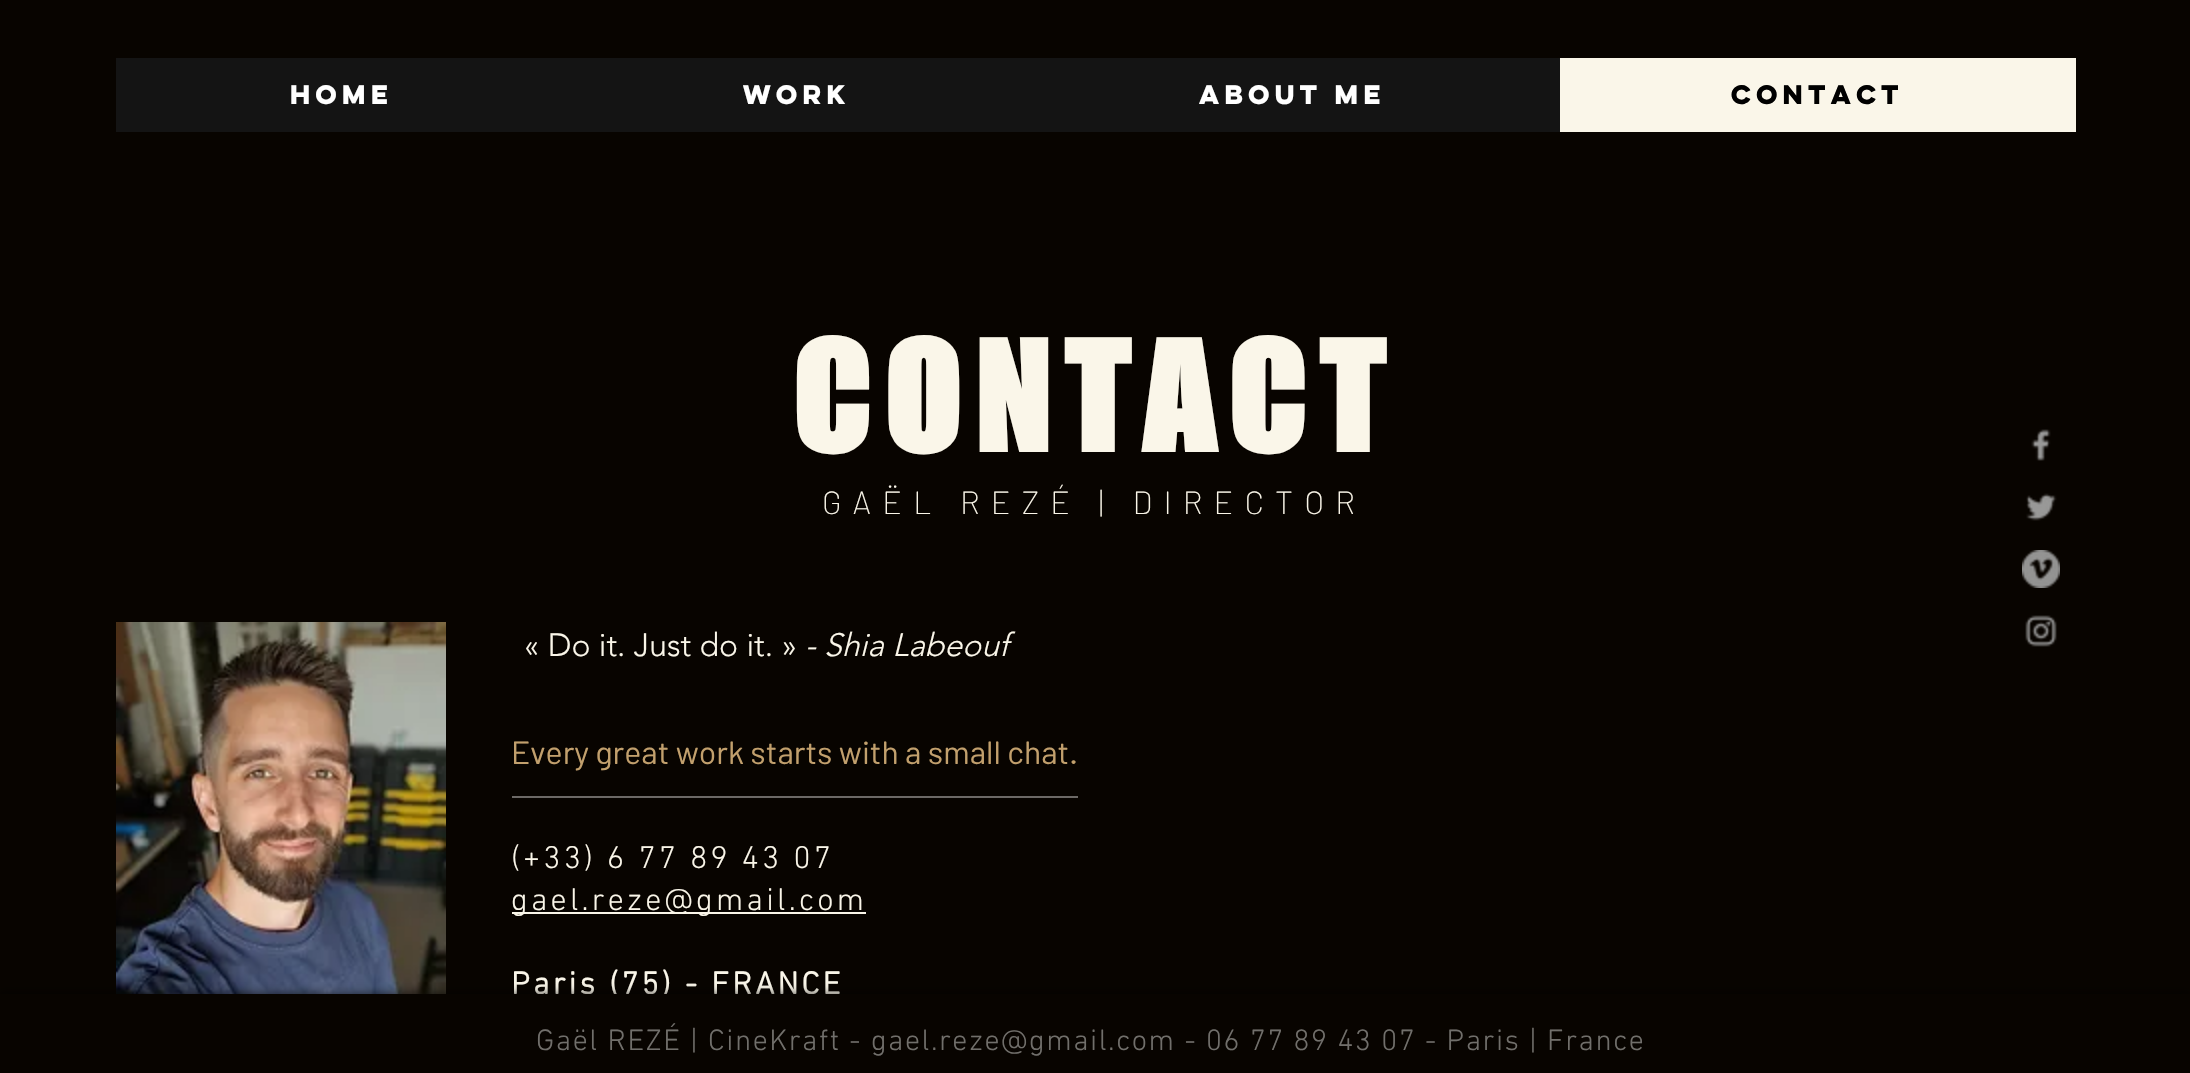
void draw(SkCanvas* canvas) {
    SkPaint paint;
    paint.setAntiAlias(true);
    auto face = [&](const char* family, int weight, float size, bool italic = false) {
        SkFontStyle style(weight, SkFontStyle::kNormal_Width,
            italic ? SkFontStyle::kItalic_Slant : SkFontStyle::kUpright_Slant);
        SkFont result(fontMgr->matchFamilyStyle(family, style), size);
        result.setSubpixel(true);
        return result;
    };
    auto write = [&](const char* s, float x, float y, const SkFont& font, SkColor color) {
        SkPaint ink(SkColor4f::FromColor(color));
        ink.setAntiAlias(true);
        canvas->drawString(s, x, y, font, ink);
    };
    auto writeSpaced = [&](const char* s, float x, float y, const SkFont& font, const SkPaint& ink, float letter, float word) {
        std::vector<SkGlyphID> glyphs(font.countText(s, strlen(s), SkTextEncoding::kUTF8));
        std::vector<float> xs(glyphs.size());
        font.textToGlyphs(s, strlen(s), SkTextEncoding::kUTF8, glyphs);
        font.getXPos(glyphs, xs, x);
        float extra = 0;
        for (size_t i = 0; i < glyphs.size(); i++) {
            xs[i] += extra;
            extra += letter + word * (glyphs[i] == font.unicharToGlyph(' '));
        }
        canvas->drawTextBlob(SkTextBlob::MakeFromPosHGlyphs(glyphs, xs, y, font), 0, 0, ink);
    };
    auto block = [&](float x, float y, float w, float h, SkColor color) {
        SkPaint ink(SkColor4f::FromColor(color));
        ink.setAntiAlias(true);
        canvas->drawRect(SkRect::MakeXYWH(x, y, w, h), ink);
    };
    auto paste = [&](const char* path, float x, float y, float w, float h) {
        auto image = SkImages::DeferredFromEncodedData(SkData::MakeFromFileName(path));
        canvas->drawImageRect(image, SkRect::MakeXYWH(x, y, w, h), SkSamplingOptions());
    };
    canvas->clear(SkColorSetRGB(8, 4, 0));
    block(116, 58, 1444, 74, SkColorSetRGB(20, 20, 20));
    auto kFont1 = face("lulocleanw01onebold", 700, 24);
    write("Home", 290, 104, kFont1, SK_ColorWHITE);
    write("Work", 743, 104, kFont1, SK_ColorWHITE);
    write("About me", 1199, 104, kFont1, SK_ColorWHITE);
    block(1560, 58, 516, 74, SkColorSetRGB(250, 246, 233));
    write("Contact", 1731, 104, kFont1, SK_ColorBLACK);
    auto kFont2 = face("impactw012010", 700, 140);
    paint.setColor(SkColorSetRGB(250, 246, 233));
    writeSpaced("CONTACT", 792, 452, kFont2, paint, 14, 0);
    auto kFont3 = face("Barlow", 200, 32);
    writeSpaced("GAËL REZÉ | DIRECTOR", 822, 514, kFont3, paint, 11.2f, 0);
    paste("pic1.png", 116, 622, 330, 372);
    auto kFont4 = face("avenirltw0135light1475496", 300, 32);
    write("« Do it. Just do it. »", 524, 656, kFont4, SkColorSetRGB(250, 246, 233));
    auto kFont5 = face("avenirltw0135light1475496", 300, 32, true);
    write("- Shia Labeouf", 805, 656, kFont5, SkColorSetRGB(250, 246, 233));
    auto kFont6 = face("Barlow", 400, 32);
    write("Every great work starts with a small chat.", 511, 764, kFont6, SkColorSetRGB(194, 160, 109));
    block(512, 796, 566, 2, SkColorSetRGB(108, 105, 102));
    auto kFont7 = face("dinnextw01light", 300, 32);
    writeSpaced("(+33) 6 77 89 43 07", 511, 868, kFont7, paint, 3.25f, 0);
    block(512, 912, 354, 2, SkColorSetRGB(250, 246, 233));
    writeSpaced("gael.reze@gmail.com", 511, 910, kFont7, paint, 3.25f, 0);
    auto kFont8 = face("dinnextw01light", 700, 32);
    writeSpaced("Paris (75) - FRANCE", 511, 994, kFont8, paint, 3.25f, 0);
    paste("pic2.png", 2031, 429, 20, 32);
    paste("pic3.png", 2026, 493, 31, 28);
    paste("pic4.png", 2022, 550, 38, 38);
    paste("pic5.png", 2025, 615, 32, 32);
    paint.setColor(SkColorSetARGB(179, 0, 0, 0));
    paint.setMaskFilter(SkMaskFilter::MakeBlur(kNormal_SkBlurStyle, 5));
    canvas->drawRect(SkRect::MakeXYWH(0, 994, 2190, 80), paint);
    paint.setMaskFilter(nullptr);
    block(0, 994, 2190, 79, SkColorSetRGB(8, 4, 0));
    auto kFont9 = face("dinnextw01light", 300, 30);
    paint.setColor(SkColorSetRGB(113, 111, 107));
    writeSpaced("Gaël REZÉ | CineKraft - gael.reze@gmail.com - 06 77 89 43 07 - Paris | France", 536, 1050, kFont9, paint, 1.5f, 0);
}
